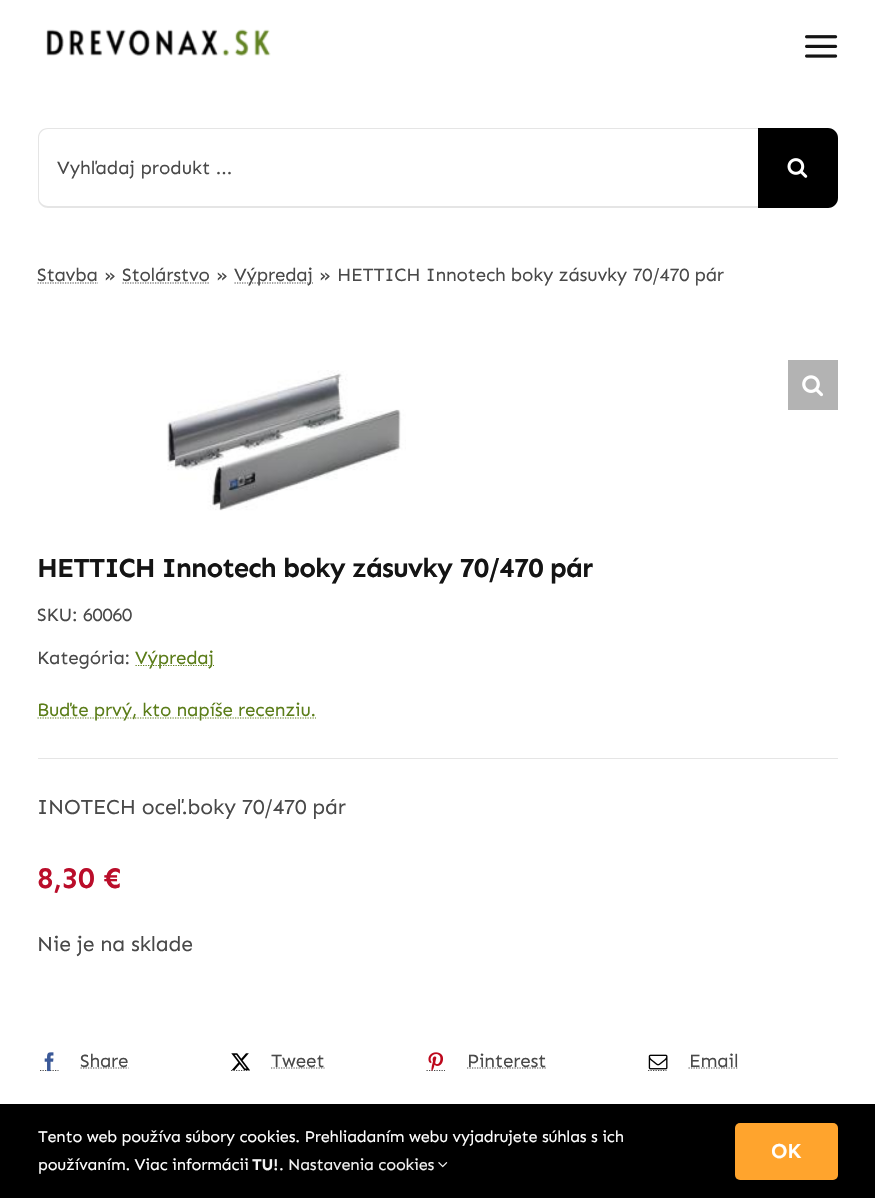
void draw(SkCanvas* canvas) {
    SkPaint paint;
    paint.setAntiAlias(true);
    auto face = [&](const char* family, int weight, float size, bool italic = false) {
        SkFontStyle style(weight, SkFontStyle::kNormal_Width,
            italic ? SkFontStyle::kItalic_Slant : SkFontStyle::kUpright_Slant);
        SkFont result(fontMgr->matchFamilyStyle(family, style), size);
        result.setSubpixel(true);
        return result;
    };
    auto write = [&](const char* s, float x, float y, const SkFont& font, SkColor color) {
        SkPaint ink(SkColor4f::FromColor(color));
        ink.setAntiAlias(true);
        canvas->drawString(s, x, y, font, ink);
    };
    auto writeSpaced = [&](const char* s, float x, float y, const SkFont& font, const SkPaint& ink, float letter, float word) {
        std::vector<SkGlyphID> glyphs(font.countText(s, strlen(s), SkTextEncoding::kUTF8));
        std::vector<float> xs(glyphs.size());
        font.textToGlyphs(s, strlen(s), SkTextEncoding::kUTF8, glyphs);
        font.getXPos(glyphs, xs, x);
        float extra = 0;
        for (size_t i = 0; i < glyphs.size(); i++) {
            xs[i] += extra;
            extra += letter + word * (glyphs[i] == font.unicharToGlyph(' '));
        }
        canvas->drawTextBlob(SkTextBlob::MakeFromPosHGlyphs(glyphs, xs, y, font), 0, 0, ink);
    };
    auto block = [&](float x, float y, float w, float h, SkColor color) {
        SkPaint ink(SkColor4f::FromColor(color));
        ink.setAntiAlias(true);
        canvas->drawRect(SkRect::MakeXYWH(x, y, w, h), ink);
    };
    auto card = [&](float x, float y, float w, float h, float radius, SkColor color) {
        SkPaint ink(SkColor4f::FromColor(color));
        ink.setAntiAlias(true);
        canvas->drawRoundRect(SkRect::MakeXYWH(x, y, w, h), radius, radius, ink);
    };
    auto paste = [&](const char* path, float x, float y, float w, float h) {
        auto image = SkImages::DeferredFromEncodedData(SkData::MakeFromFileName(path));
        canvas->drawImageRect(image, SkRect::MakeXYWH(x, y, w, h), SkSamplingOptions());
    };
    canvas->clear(SK_ColorWHITE);
    paste("pic1.png", 46, 29, 225, 27);
    paste("pic2.png", 805, 35, 33, 23);
    paint.setColor(SkColorSetRGB(229, 229, 229));
    canvas->drawPath(SkPathBuilder().moveTo(48, 128).cubicTo(42, 128, 38, 132, 38, 138).lineTo(38, 198).cubicTo(38, 201, 39, 204, 42, 206).cubicTo(43, 207, 46, 208, 48, 208).lineTo(758, 208).lineTo(758, 206).lineTo(48, 206).cubicTo(43, 206, 39, 202, 39, 198).lineTo(39, 138).cubicTo(39, 133, 43, 129, 48, 129).lineTo(758, 129).lineTo(758, 128).close().detach(), paint);
    auto kFont1 = face("Sen", 400, 18.75f);
    write("Vyhľadaj produkt ...", 57, 174, kFont1, SkColorSetRGB(73, 73, 73));
    paint.setColor(SK_ColorBLACK);
    canvas->drawPath(SkPathBuilder().moveTo(758, 128).lineTo(828, 128).cubicTo(833.5f, 128, 838, 132.5f, 838, 138).lineTo(838, 198).cubicTo(838, 203.5f, 833.5f, 208, 828, 208).lineTo(758, 208).close().detach(), paint);
    paste("pic3.png", 787, 158, 21, 20);
    paint.setColor(SkColorSetRGB(73, 73, 73));
    writeSpaced("Stavba", 37, 281, kFont1, paint, -0.2f, 0);
    paint.setStyle(SkPaint::kStroke_Style);
    paint.setStrokeWidth(1.2f);
    paint.setPathEffect(SkDashPathEffect::Make({{1.25f, 1.25f}}, 0));
    canvas->drawPath(SkPathBuilder().moveTo(37.5f, 283).lineTo(98, 283).detach(), paint);
    paint.setPathEffect(nullptr);
    paint.setStyle(SkPaint::kFill_Style);
    writeSpaced("»", 104, 281, kFont1, paint, -0.2f, 0);
    writeSpaced("Stolárstvo", 122, 281, kFont1, paint, -0.2f, 0);
    paint.setStyle(SkPaint::kStroke_Style);
    paint.setPathEffect(SkDashPathEffect::Make({{1.25f, 1.25f}}, 0));
    canvas->drawPath(SkPathBuilder().moveTo(122.5f, 283).lineTo(210, 283).detach(), paint);
    paint.setPathEffect(nullptr);
    paint.setStyle(SkPaint::kFill_Style);
    writeSpaced("»", 216, 281, kFont1, paint, -0.2f, 0);
    paint.setStyle(SkPaint::kStroke_Style);
    paint.setPathEffect(SkDashPathEffect::Make({{1.25f, 1.25f}}, 0));
    canvas->drawPath(SkPathBuilder().moveTo(234.5f, 283).lineTo(313, 283).detach(), paint);
    paint.setPathEffect(nullptr);
    paint.setStyle(SkPaint::kFill_Style);
    writeSpaced("Výpredaj", 234, 281, kFont1, paint, -0.2f, 0);
    writeSpaced("»", 319, 281, kFont1, paint, -0.2f, 0);
    writeSpaced("HETTICH Innotech boky zásuvky 70/470 pár", 337, 281, kFont1, paint, -0.2f, 0);
    paste("pic4.png", 167, 370, 239, 141);
    block(788, 360, 50, 50, SkColorSetRGB(179, 179, 179));
    paste("pic5.png", 802, 375, 21, 22);
    auto kFont2 = face("Sen", 700, 27.5f);
    paint.setColor(SkColorSetRGB(20, 20, 20));
    writeSpaced("HETTICH Innotech boky zásuvky 70/470 pár", 37, 577, kFont2, paint, -0.95f, 0);
    paint.setColor(SkColorSetRGB(73, 73, 73));
    writeSpaced("SKU: 60060", 37, 621, kFont1, paint, -0.2f, 0);
    writeSpaced("Kategória:", 37, 664, kFont1, paint, -0.2f, 0);
    paint.setStyle(SkPaint::kStroke_Style);
    paint.setColor(SkColorSetRGB(91, 125, 25));
    paint.setPathEffect(SkDashPathEffect::Make({{1.25f, 1.25f}}, 0));
    canvas->drawPath(SkPathBuilder().moveTo(135.5f, 665.5f).lineTo(214, 665.5f).detach(), paint);
    paint.setPathEffect(nullptr);
    paint.setStyle(SkPaint::kFill_Style);
    writeSpaced("Výpredaj", 135, 664, kFont1, paint, -0.2f, 0);
    paint.setStyle(SkPaint::kStroke_Style);
    paint.setPathEffect(SkDashPathEffect::Make({{1.25f, 1.25f}}, 0));
    canvas->drawPath(SkPathBuilder().moveTo(37.5f, 718).lineTo(316, 718).detach(), paint);
    paint.setPathEffect(nullptr);
    paint.setStyle(SkPaint::kFill_Style);
    writeSpaced("Buďte prvý, kto napíše recenziu.", 37, 716, kFont1, paint, -0.2f, 0);
    block(38, 758, 800, 1, SkColorSetRGB(229, 229, 229));
    auto kFont3 = face("Sen", 400, 21.25f);
    paint.setColor(SkColorSetRGB(73, 73, 73));
    writeSpaced("INOTECH oceľ.boky 70/470 pár", 37, 814, kFont3, paint, -0.2f, 0);
    auto kFont4 = face("Sen", 600, 30);
    paint.setColor(SkColorSetRGB(186, 13, 42));
    writeSpaced("8,30 €", 37, 888, kFont4, paint, -0.25f, 0);
    paint.setColor(SkColorSetRGB(73, 73, 73));
    writeSpaced("Nie je na sklade", 37, 951, kFont3, paint, -0.2f, 0);
    paint.setStyle(SkPaint::kStroke_Style);
    paint.setPathEffect(SkDashPathEffect::Make({{1.25f, 1.25f}}, 0));
    canvas->drawPath(SkPathBuilder().moveTo(40, 1070.5f).lineTo(58.5f, 1070.5f).detach(), paint);
    paint.setPathEffect(nullptr);
    paste("pic6.png", 44, 1052, 10, 20);
    paint.setPathEffect(SkDashPathEffect::Make({{1.25f, 1.25f}}, 0));
    canvas->drawPath(SkPathBuilder().moveTo(80.5f, 1068).lineTo(128.5f, 1068).detach(), paint);
    paint.setPathEffect(nullptr);
    paint.setStyle(SkPaint::kFill_Style);
    writeSpaced("Share", 80, 1067, kFont1, paint, -0.2f, 0);
    paint.setStyle(SkPaint::kStroke_Style);
    paint.setPathEffect(SkDashPathEffect::Make({{1.25f, 1.25f}}, 0));
    canvas->drawPath(SkPathBuilder().moveTo(231, 1070.5f).lineTo(249.5f, 1070.5f).detach(), paint);
    paint.setPathEffect(nullptr);
    paste("pic7.png", 231, 1053, 19, 18);
    paint.setPathEffect(SkDashPathEffect::Make({{1.25f, 1.25f}}, 0));
    canvas->drawPath(SkPathBuilder().moveTo(271, 1068).lineTo(324.5f, 1068).detach(), paint);
    paint.setPathEffect(nullptr);
    paint.setStyle(SkPaint::kFill_Style);
    writeSpaced("Tweet", 271, 1067, kFont1, paint, -0.2f, 0);
    paint.setStyle(SkPaint::kStroke_Style);
    paint.setPathEffect(SkDashPathEffect::Make({{1.25f, 1.25f}}, 0));
    canvas->drawPath(SkPathBuilder().moveTo(426.5f, 1070.5f).lineTo(445, 1070.5f).detach(), paint);
    paint.setPathEffect(nullptr);
    paste("pic8.png", 428, 1052, 15, 19);
    paint.setPathEffect(SkDashPathEffect::Make({{1.25f, 1.25f}}, 0));
    canvas->drawPath(SkPathBuilder().moveTo(467, 1068).lineTo(546, 1068).detach(), paint);
    paint.setPathEffect(nullptr);
    paint.setStyle(SkPaint::kFill_Style);
    writeSpaced("Pinterest", 467, 1067, kFont1, paint, -0.2f, 0);
    paint.setStyle(SkPaint::kStroke_Style);
    paint.setPathEffect(SkDashPathEffect::Make({{1.25f, 1.25f}}, 0));
    canvas->drawPath(SkPathBuilder().moveTo(648, 1070.5f).lineTo(666.5f, 1070.5f).detach(), paint);
    paint.setPathEffect(nullptr);
    paste("pic9.png", 648, 1054, 20, 16);
    paint.setPathEffect(SkDashPathEffect::Make({{1.25f, 1.25f}}, 0));
    canvas->drawPath(SkPathBuilder().moveTo(688.5f, 1068).lineTo(738, 1068).detach(), paint);
    paint.setPathEffect(nullptr);
    paint.setStyle(SkPaint::kFill_Style);
    writeSpaced("Email", 689, 1067, kFont1, paint, -0.2f, 0);
    block(0, 1104, 875, 94, SK_ColorBLACK);
    auto kFont5 = face("Sen", 400, 16.25f);
    paint.setColor(SK_ColorWHITE);
    writeSpaced("Tento web používa súbory cookies. Prehliadaním webu vyjadrujete súhlas s ich", 38, 1142, kFont5, paint, -0.2f, 0);
    writeSpaced("používaním. Viac informácii", 38, 1170, kFont5, paint, -0.2f, 0);
    auto kFont6 = face("Sen", 700, 16.25f);
    paint.setColor(SkColorSetRGB(242, 242, 242));
    writeSpaced("TU!", 252, 1170, kFont6, paint, -0.2f, 0);
    writeSpaced("Nastavenia cookies", 288, 1170, kFont5, paint, -0.2f, 0);
    paste("pic10.png", 438, 1162, 10, 6);
    paint.setColor(SK_ColorWHITE);
    writeSpaced(".", 279, 1170, kFont5, paint, -0.2f, 0);
    card(735, 1123, 103, 57, 5, SkColorSetRGB(255, 164, 45));
    auto kFont7 = face("Sen", 600, 21.25f);
    writeSpaced("OK", 771, 1158, kFont7, paint, -0.2f, 0);
}
